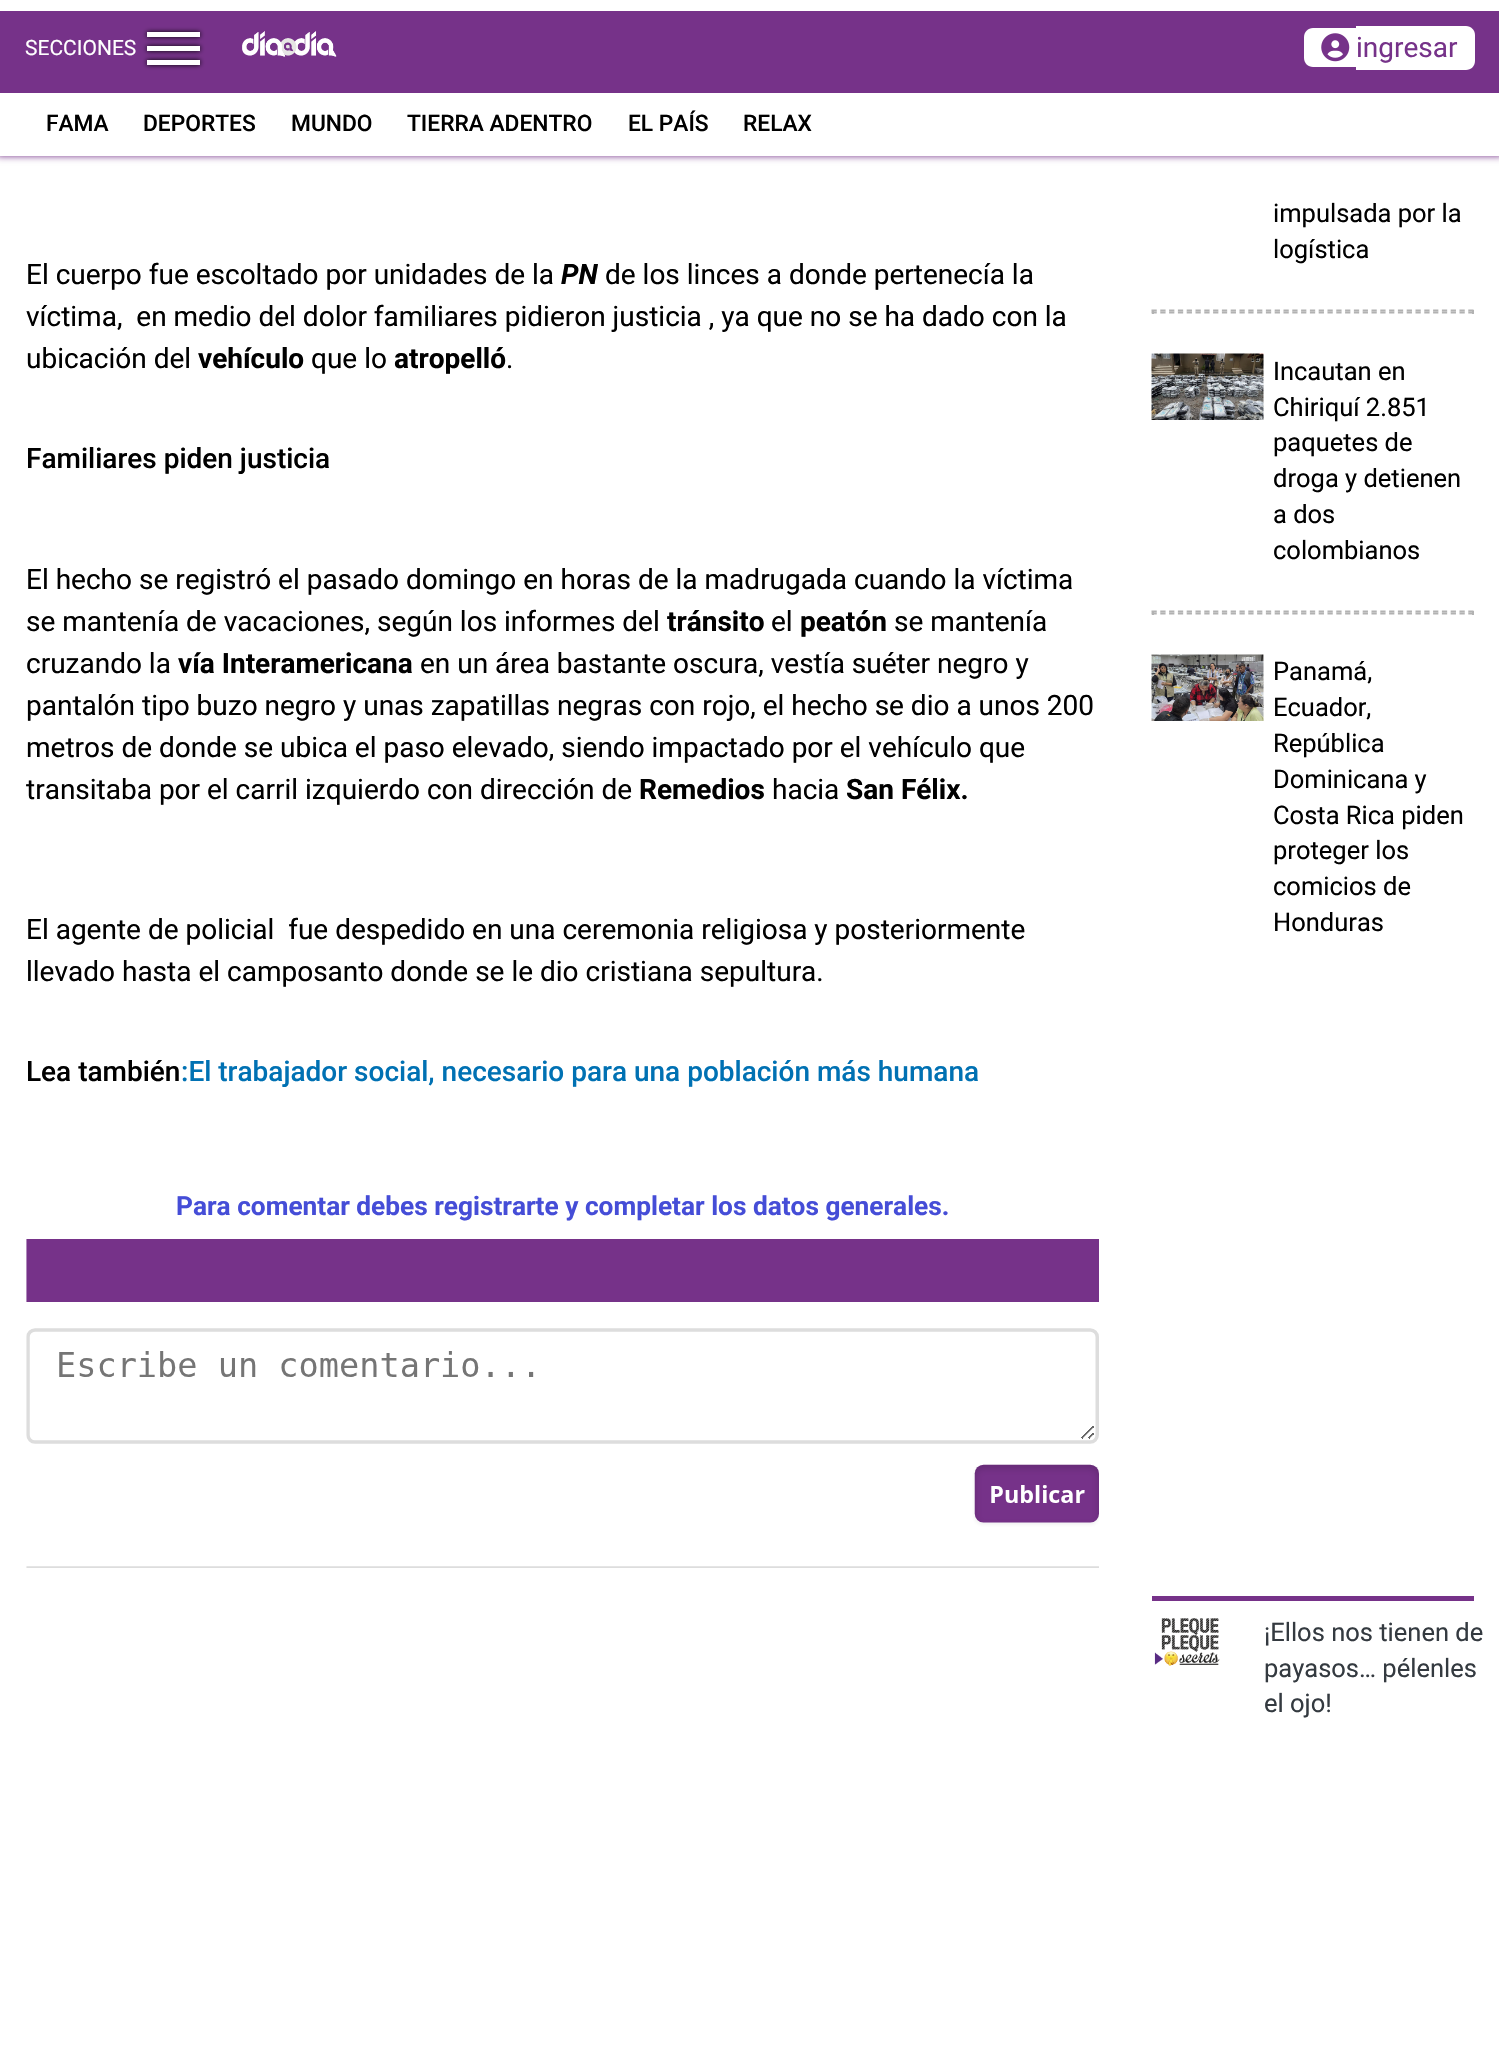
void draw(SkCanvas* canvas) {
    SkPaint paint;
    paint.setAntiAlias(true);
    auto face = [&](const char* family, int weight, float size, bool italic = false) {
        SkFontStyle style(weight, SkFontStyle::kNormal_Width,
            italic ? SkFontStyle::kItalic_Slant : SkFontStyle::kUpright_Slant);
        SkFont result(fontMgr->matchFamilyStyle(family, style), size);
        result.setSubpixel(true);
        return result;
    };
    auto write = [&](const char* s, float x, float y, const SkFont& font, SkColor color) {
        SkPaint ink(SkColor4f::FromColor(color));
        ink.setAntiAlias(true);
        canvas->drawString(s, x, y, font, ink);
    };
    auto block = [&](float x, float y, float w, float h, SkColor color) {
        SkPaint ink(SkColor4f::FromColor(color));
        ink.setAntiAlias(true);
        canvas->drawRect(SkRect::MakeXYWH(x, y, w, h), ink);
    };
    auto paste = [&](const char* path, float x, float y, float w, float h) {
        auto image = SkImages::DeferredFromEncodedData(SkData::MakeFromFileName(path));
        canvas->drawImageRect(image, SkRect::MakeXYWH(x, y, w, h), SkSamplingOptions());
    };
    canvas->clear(SK_ColorWHITE);
    block(0, 11, 1499, 82, SkColorSetRGB(118, 50, 137));
    auto kFont1 = face("Roboto", 400, 21);
    write("SECCIONES", 25, 55, kFont1, SK_ColorWHITE);
    paint.setColor(SK_ColorBLACK);
    paint.setMaskFilter(SkMaskFilter::MakeBlur(kNormal_SkBlurStyle, 2.5f));
    canvas->drawRect(SkRect::MakeXYWH(147, 32, 53, 5), paint);
    paint.setMaskFilter(nullptr);
    block(147, 32, 53, 5, SK_ColorWHITE);
    paint.setMaskFilter(SkMaskFilter::MakeBlur(kNormal_SkBlurStyle, 2.5f));
    canvas->drawRect(SkRect::MakeXYWH(147, 46, 53, 5), paint);
    paint.setMaskFilter(nullptr);
    block(147, 46, 53, 5, SK_ColorWHITE);
    paint.setMaskFilter(SkMaskFilter::MakeBlur(kNormal_SkBlurStyle, 2.5f));
    canvas->drawRect(SkRect::MakeXYWH(147, 60, 53, 5), paint);
    paint.setMaskFilter(nullptr);
    block(147, 60, 53, 5, SK_ColorWHITE);
    paste("pic1.png", 242, 31, 95, 26);
    paint.setColor(SK_ColorWHITE);
    canvas->drawPath(SkPathBuilder().moveTo(1313, 28).lineTo(1356, 28).lineTo(1356, 67).lineTo(1313, 67).cubicTo(1308, 67, 1304, 63, 1304, 58).lineTo(1304, 37).cubicTo(1304, 32, 1308, 28, 1313, 28).close().detach(), paint);
    canvas->drawPath(SkPathBuilder().moveTo(1356, 26).lineTo(1466, 26).cubicTo(1471, 26, 1475, 30, 1475, 35).lineTo(1475, 61).cubicTo(1475, 66, 1471, 70, 1466, 70).lineTo(1356, 70).close().detach(), paint);
    paste("pic2.png", 1321, 33, 29, 29);
    auto kFont2 = face("Roboto", 400, 28);
    write("ingresar", 1356, 57, kFont2, SkColorSetRGB(118, 50, 137));
    canvas->save();
    canvas->clipPath(SkPathBuilder(SkPathFillType::kEvenOdd).moveTo(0, 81).lineTo(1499, 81).lineTo(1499, 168).lineTo(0, 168).close().moveTo(-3, 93).lineTo(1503, 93).lineTo(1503, 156).lineTo(-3, 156).close().detach(), true);
    paint.setColor(SkColorSetRGB(118, 50, 137));
    paint.setMaskFilter(SkMaskFilter::MakeBlur(kNormal_SkBlurStyle, 3.5f));
    canvas->drawRect(SkRect::MakeXYWH(-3, 93, 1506, 63), paint);
    paint.setMaskFilter(nullptr);
    canvas->restore();
    auto kFont3 = face("Roboto", 500, 22.75f);
    write("FAMA", 46, 131, kFont3, SK_ColorBLACK);
    write("DEPORTES", 143, 131, kFont3, SK_ColorBLACK);
    write("MUNDO", 291, 131, kFont3, SK_ColorBLACK);
    write("TIERRA ADENTRO", 407, 131, kFont3, SK_ColorBLACK);
    write("EL PAÍS", 628, 131, kFont3, SK_ColorBLACK);
    write("RELAX", 743, 131, kFont3, SK_ColorBLACK);
    write("El cuerpo fue escoltado por unidades de la", 26, 284, kFont2, SK_ColorBLACK);
    auto kFont4 = face("Roboto", 700, 28, true);
    write("PN", 561, 284, kFont4, SK_ColorBLACK);
    write("de los linces a donde pertenecía la", 605, 284, kFont2, SK_ColorBLACK);
    write("víctima,  en medio del dolor familiares pidieron justicia , ya que no se ha dado con la", 26, 326, kFont2, SK_ColorBLACK);
    write("ubicación del", 26, 368, kFont2, SK_ColorBLACK);
    auto kFont5 = face("Roboto", 700, 28);
    write("vehículo", 198, 368, kFont5, SK_ColorBLACK);
    write("que lo", 311, 368, kFont2, SK_ColorBLACK);
    write("atropelló", 394, 368, kFont5, SK_ColorBLACK);
    write(".", 506, 368, kFont2, SK_ColorBLACK);
    auto kFont6 = face("Roboto", 500, 28);
    write("Familiares piden justicia", 26, 468, kFont6, SK_ColorBLACK);
    write("El hecho se registró el pasado domingo en horas de la madrugada cuando la víctima", 26, 589, kFont2, SK_ColorBLACK);
    write("se mantenía de vacaciones, según los informes del", 26, 631, kFont2, SK_ColorBLACK);
    write("tránsito", 667, 631, kFont5, SK_ColorBLACK);
    write("el", 771, 631, kFont2, SK_ColorBLACK);
    write("peatón", 800, 631, kFont5, SK_ColorBLACK);
    write("se mantenía", 894, 631, kFont2, SK_ColorBLACK);
    write("cruzando la", 26, 673, kFont2, SK_ColorBLACK);
    write("vía Interamericana", 178, 673, kFont5, SK_ColorBLACK);
    write("en un área bastante oscura, vestía suéter negro y", 420, 673, kFont2, SK_ColorBLACK);
    write("pantalón tipo buzo negro y unas zapatillas negras con rojo, el hecho se dio a unos 200", 26, 715, kFont2, SK_ColorBLACK);
    write("metros de donde se ubica el paso elevado, siendo impactado por el vehículo que", 26, 757, kFont2, SK_ColorBLACK);
    write("transitaba por el carril izquierdo con dirección de", 26, 799, kFont2, SK_ColorBLACK);
    write("Remedios", 639, 799, kFont5, SK_ColorBLACK);
    write("hacia", 772, 799, kFont2, SK_ColorBLACK);
    write("San Félix.", 846, 799, kFont5, SK_ColorBLACK);
    write("El agente de policial  fue despedido en una ceremonia religiosa y posteriormente", 26, 939, kFont2, SK_ColorBLACK);
    write("llevado hasta el camposanto donde se le dio cristiana sepultura.", 26, 981, kFont2, SK_ColorBLACK);
    write("Lea también", 26, 1081, kFont6, SK_ColorBLACK);
    write(":El trabajador social, necesario para una población más humana", 181, 1081, kFont6, SkColorSetRGB(0, 113, 179));
    auto kFont7 = face("Roboto", 700, 26.25f);
    write("Para comentar debes registrarte y completar los datos generales.", 176, 1215, kFont7, SkColorSetRGB(69, 77, 215));
    paste("pic3.png", 26, 1239, 1073, 329);
    auto kFont8 = face("Roboto", 400, 25.5f);
    write("impulsada por la", 1273, 222, kFont8, SK_ColorBLACK);
    write("logística", 1273, 258, kFont8, SK_ColorBLACK);
    paint.setStyle(SkPaint::kStroke_Style);
    paint.setStrokeWidth(1.8f);
    paint.setColor(SkColorSetRGB(178, 178, 178));
    paint.setPathEffect(SkDashPathEffect::Make({{5.25f, 3.55f}}, 0));
    canvas->drawPath(SkPathBuilder().moveTo(1151.5f, 310.5f).lineTo(1473.5f, 310.5f).detach(), paint);
    paint.setPathEffect(nullptr);
    block(1472, 310, 2, 4, SkColorSetRGB(178, 178, 178));
    paint.setPathEffect(SkDashPathEffect::Make({{5.25f, 3.55f}}, 0));
    canvas->drawPath(SkPathBuilder().moveTo(1151.5f, 312.5f).lineTo(1473.5f, 312.5f).detach(), paint);
    paint.setPathEffect(nullptr);
    block(1152, 310, 2, 4, SkColorSetRGB(178, 178, 178));
    paste("pic4.png", 1151, 353, 113, 67);
    write("Incautan en", 1273, 380, kFont8, SK_ColorBLACK);
    write("Chiriquí 2.851", 1273, 416, kFont8, SK_ColorBLACK);
    write("paquetes de", 1273, 451, kFont8, SK_ColorBLACK);
    write("droga y detienen", 1273, 487, kFont8, SK_ColorBLACK);
    write("a dos", 1273, 523, kFont8, SK_ColorBLACK);
    write("colombianos", 1273, 559, kFont8, SK_ColorBLACK);
    paint.setPathEffect(SkDashPathEffect::Make({{5.25f, 3.55f}}, 0));
    canvas->drawPath(SkPathBuilder().moveTo(1151.5f, 611.5f).lineTo(1473.5f, 611.5f).detach(), paint);
    paint.setPathEffect(nullptr);
    block(1472, 611, 2, 4, SkColorSetRGB(178, 178, 178));
    paint.setPathEffect(SkDashPathEffect::Make({{5.25f, 3.55f}}, 0));
    canvas->drawPath(SkPathBuilder().moveTo(1151.5f, 613.5f).lineTo(1473.5f, 613.5f).detach(), paint);
    paint.setPathEffect(nullptr);
    block(1152, 611, 2, 4, SkColorSetRGB(178, 178, 178));
    paste("pic5.png", 1151, 654, 113, 67);
    write("Panamá,", 1273, 680, kFont8, SK_ColorBLACK);
    write("Ecuador,", 1273, 716, kFont8, SK_ColorBLACK);
    write("República", 1273, 752, kFont8, SK_ColorBLACK);
    write("Dominicana y", 1273, 788, kFont8, SK_ColorBLACK);
    write("Costa Rica piden", 1273, 824, kFont8, SK_ColorBLACK);
    write("proteger los", 1273, 859, kFont8, SK_ColorBLACK);
    write("comicios de", 1273, 895, kFont8, SK_ColorBLACK);
    write("Honduras", 1273, 931, kFont8, SK_ColorBLACK);
    block(1152, 1596, 322, 5, SkColorSetRGB(118, 50, 137));
    paste("pic6.png", 1154, 1618, 66, 48);
    write("¡Ellos nos tienen de", 1264, 1641, kFont8, SkColorSetRGB(52, 58, 64));
    write("payasos… pélenles", 1264, 1677, kFont8, SkColorSetRGB(52, 58, 64));
    write("el ojo!", 1264, 1712, kFont8, SkColorSetRGB(52, 58, 64));
}
